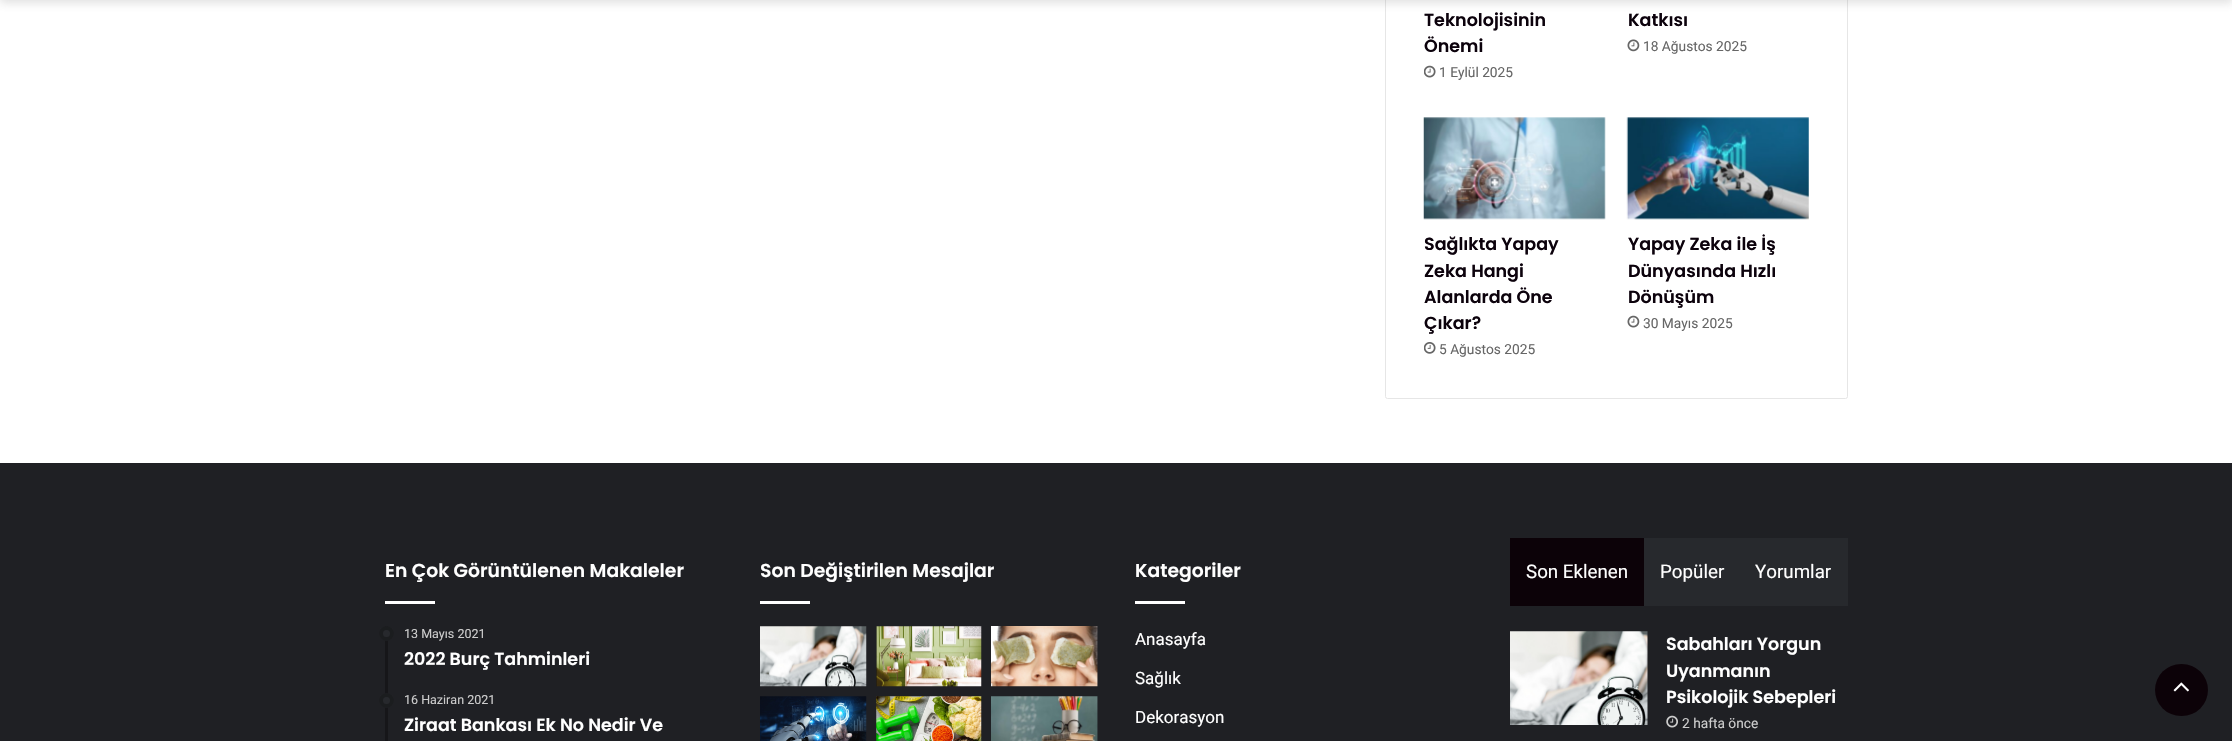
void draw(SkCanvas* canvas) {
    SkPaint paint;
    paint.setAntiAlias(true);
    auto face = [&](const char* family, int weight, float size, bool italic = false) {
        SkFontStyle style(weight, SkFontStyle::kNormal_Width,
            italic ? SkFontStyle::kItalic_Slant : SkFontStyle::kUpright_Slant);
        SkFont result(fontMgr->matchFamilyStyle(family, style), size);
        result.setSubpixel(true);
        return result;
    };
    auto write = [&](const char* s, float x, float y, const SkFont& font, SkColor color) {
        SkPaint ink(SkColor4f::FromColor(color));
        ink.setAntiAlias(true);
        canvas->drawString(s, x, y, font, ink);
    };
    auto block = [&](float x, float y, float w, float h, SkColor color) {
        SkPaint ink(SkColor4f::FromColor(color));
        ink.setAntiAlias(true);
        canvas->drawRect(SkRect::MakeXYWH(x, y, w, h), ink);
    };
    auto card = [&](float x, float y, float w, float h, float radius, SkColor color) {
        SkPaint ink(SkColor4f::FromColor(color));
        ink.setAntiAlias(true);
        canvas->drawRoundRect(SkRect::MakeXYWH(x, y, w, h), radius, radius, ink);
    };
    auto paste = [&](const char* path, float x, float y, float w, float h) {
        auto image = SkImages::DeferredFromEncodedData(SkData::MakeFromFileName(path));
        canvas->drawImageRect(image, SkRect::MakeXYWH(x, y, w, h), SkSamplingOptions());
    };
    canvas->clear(SK_ColorWHITE);
    paint.setStyle(SkPaint::kStroke_Style);
    paint.setStrokeWidth(1);
    paint.setColor(SkColorSetRGB(230, 230, 230));
    canvas->drawRoundRect(SkRect::MakeXYWH(1385.5f, -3.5f, 462, 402), 2, 2, paint);
    paint.setStyle(SkPaint::kFill_Style);
    paint.setColor(SkColorSetARGB(51, 99, 99, 99));
    paint.setMaskFilter(SkMaskFilter::MakeBlur(kNormal_SkBlurStyle, 5));
    canvas->drawRect(SkRect::MakeXYWH(0, -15, 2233, 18), paint);
    paint.setMaskFilter(nullptr);
    auto kFont1 = face("Poppins", 600, 17.5f);
    write("Teknolojisinin", 1424, 26, kFont1, SkColorSetRGB(12, 2, 12));
    write("Önemi", 1424, 52, kFont1, SkColorSetRGB(12, 2, 12));
    paste("pic1.png", 1424, 65, 12, 13);
    auto kFont2 = face("Roboto", 400, 13.75f);
    write("1 Eylül 2025", 1439, 77, kFont2, SkColorSetRGB(102, 102, 102));
    write("Katkısı", 1628, 26, kFont1, SkColorSetRGB(12, 2, 12));
    paste("pic2.png", 1627, 39, 13, 13);
    write("18 Ağustos 2025", 1643, 51, kFont2, SkColorSetRGB(102, 102, 102));
    paste("pic3.png", 1423, 117, 183, 103);
    write("Sağlıkta Yapay", 1424, 250, kFont1, SkColorSetRGB(12, 2, 12));
    write("Zeka Hangi", 1424, 277, kFont1, SkColorSetRGB(12, 2, 12));
    write("Alanlarda Öne", 1424, 303, kFont1, SkColorSetRGB(12, 2, 12));
    write("Çıkar?", 1424, 329, kFont1, SkColorSetRGB(12, 2, 12));
    paste("pic4.png", 1424, 342, 12, 12);
    write("5 Ağustos 2025", 1439, 354, kFont2, SkColorSetRGB(102, 102, 102));
    paste("pic5.png", 1626, 117, 183, 103);
    write("Yapay Zeka ile İş", 1628, 250, kFont1, SkColorSetRGB(12, 2, 12));
    write("Dünyasında Hızlı", 1628, 277, kFont1, SkColorSetRGB(12, 2, 12));
    write("Dönüşüm", 1628, 303, kFont1, SkColorSetRGB(12, 2, 12));
    paste("pic6.png", 1627, 315, 13, 13);
    write("30 Mayıs 2025", 1643, 328, kFont2, SkColorSetRGB(102, 102, 102));
    block(0, 463, 2232, 278, SkColorSetRGB(31, 32, 36));
    auto kFont3 = face("Poppins", 600, 18.75f);
    write("En Çok Görüntülenen Makaleler", 385, 577, kFont3, SK_ColorWHITE);
    block(385, 601, 50, 3, SK_ColorWHITE);
    block(385, 626, 3, 115, SkColorSetRGB(22, 22, 25));
    paint.setColor(SkColorSetRGB(39, 41, 45));
    canvas->drawCircle(386.5f, 633.5f, 7.5f, paint);
    paint.setStyle(SkPaint::kStroke_Style);
    paint.setStrokeWidth(4);
    paint.setColor(SkColorSetARGB(77, 0, 0, 0));
    canvas->drawCircle(386.5f, 633.5f, 5.5f, paint);
    auto kFont4 = face("Roboto", 400, 12.5f);
    write("13 Mayıs 2021", 404, 638, kFont4, SkColorSetRGB(204, 204, 204));
    write("2022 Burç Tahminleri", 404, 665, kFont1, SK_ColorWHITE);
    paint.setStyle(SkPaint::kFill_Style);
    paint.setColor(SkColorSetRGB(39, 41, 45));
    canvas->drawCircle(386.5f, 700.5f, 7.5f, paint);
    paint.setStyle(SkPaint::kStroke_Style);
    paint.setColor(SkColorSetARGB(77, 0, 0, 0));
    canvas->drawCircle(386.5f, 700.5f, 5.5f, paint);
    write("16 Haziran 2021", 404, 704, kFont4, SkColorSetRGB(204, 204, 204));
    write("Ziraat Bankası Ek No Nedir Ve", 404, 731, kFont1, SK_ColorWHITE);
    write("Son Değiştirilen Mesajlar", 760, 577, kFont3, SK_ColorWHITE);
    block(760, 601, 50, 3, SK_ColorWHITE);
    paste("pic7.png", 760, 626, 107, 61);
    paste("pic8.png", 876, 626, 106, 61);
    paste("pic9.png", 991, 626, 107, 61);
    paste("pic10.png", 760, 696, 107, 45);
    paste("pic11.png", 876, 696, 106, 45);
    paste("pic12.png", 991, 696, 107, 45);
    write("Kategoriler", 1135, 577, kFont3, SK_ColorWHITE);
    block(1135, 601, 50, 3, SK_ColorWHITE);
    auto kFont5 = face("Roboto", 400, 17);
    write("Anasayfa", 1135, 645, kFont5, SK_ColorWHITE);
    write("Sağlık", 1135, 684, kFont5, SK_ColorWHITE);
    write("Dekorasyon", 1135, 723, kFont5, SK_ColorWHITE);
    block(1510, 538, 134, 68, SkColorSetRGB(12, 2, 8));
    auto kFont6 = face("Roboto", 400, 18.75f);
    write("Son Eklenen", 1526, 578, kFont6, SK_ColorWHITE);
    block(1644, 538, 204, 68, SkColorSetRGB(39, 41, 45));
    write("Popüler", 1660, 578, kFont6, SK_ColorWHITE);
    write("Yorumlar", 1755, 578, kFont6, SK_ColorWHITE);
    paste("pic13.png", 1510, 631, 138, 94);
    write("Sabahları Yorgun", 1666, 650, kFont1, SK_ColorWHITE);
    write("Uyanmanın", 1666, 677, kFont1, SK_ColorWHITE);
    write("Psikolojik Sebepleri", 1666, 703, kFont1, SK_ColorWHITE);
    paste("pic14.png", 1666, 715, 12, 13);
    write("2 hafta önce", 1682, 728, kFont2, SkColorSetRGB(204, 204, 204));
    card(2155, 664, 53, 52, 26, SkColorSetRGB(12, 2, 8));
    paste("pic15.png", 2173, 682, 16, 10);
}
